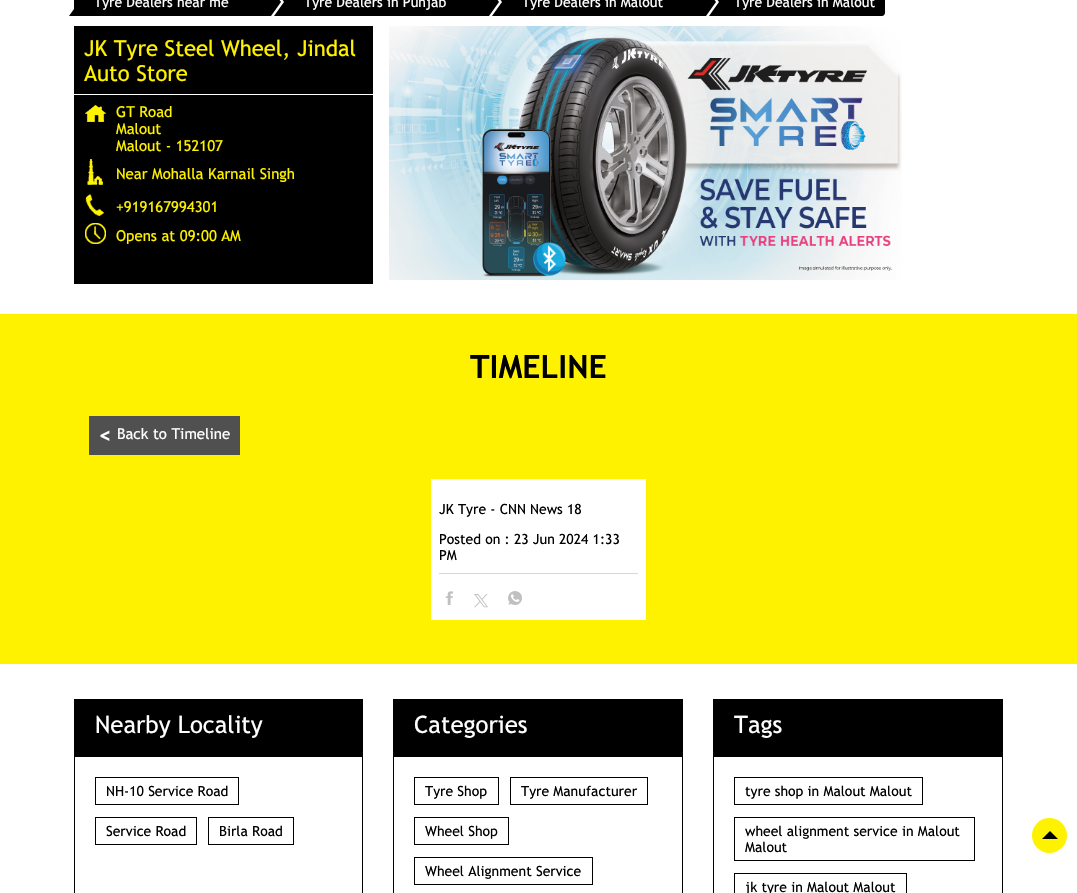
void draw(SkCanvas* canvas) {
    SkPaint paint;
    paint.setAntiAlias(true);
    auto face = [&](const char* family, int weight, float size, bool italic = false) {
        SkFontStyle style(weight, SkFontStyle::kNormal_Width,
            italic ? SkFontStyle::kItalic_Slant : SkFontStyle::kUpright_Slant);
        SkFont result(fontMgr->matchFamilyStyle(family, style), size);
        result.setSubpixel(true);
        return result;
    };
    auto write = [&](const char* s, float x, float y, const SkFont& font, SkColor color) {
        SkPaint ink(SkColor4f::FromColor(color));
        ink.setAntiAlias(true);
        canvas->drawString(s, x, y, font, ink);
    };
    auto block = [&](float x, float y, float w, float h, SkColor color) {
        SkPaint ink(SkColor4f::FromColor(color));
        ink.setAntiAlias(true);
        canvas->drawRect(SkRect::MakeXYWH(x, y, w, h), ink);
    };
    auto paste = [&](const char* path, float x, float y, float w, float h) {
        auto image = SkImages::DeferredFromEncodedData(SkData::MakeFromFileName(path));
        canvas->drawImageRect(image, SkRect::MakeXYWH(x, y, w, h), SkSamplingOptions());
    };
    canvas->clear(SK_ColorWHITE);
    block(74, 0, 197, 16, SK_ColorBLACK);
    paint.setColor(SK_ColorBLACK);
    canvas->drawPath(SkPathBuilder().moveTo(89, 16).lineTo(69, 16).lineTo(79, 2).close().detach(), paint);
    auto kFont1 = face("Trebuchet MS", 400, 14);
    write("Tyre Dealers near me", 94, 7, kFont1, SK_ColorWHITE);
    canvas->drawPath(SkPathBuilder().moveTo(271, 16).lineTo(271, -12).lineTo(281, 2).close().detach(), paint);
    block(294, 0, 195, 16, SK_ColorBLACK);
    canvas->drawPath(SkPathBuilder().moveTo(274, -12).lineTo(294, -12).lineTo(284, 2).close().detach(), paint);
    block(284, 0, 10, 16, SK_ColorBLACK);
    canvas->drawPath(SkPathBuilder().moveTo(294, 16).lineTo(274, 16).lineTo(284, 2).close().detach(), paint);
    write("Tyre Dealers in Punjab", 304, 7, kFont1, SK_ColorWHITE);
    canvas->drawPath(SkPathBuilder().moveTo(489, 16).lineTo(489, -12).lineTo(499, 2).close().detach(), paint);
    block(512, 0, 194, 16, SK_ColorBLACK);
    canvas->drawPath(SkPathBuilder().moveTo(492, -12).lineTo(512, -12).lineTo(502, 2).close().detach(), paint);
    block(502, 0, 10, 16, SK_ColorBLACK);
    canvas->drawPath(SkPathBuilder().moveTo(512, 16).lineTo(492, 16).lineTo(502, 2).close().detach(), paint);
    write("Tyre Dealers in Malout", 522, 7, kFont1, SK_ColorWHITE);
    canvas->drawPath(SkPathBuilder().moveTo(706, 16).lineTo(706, -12).lineTo(716, 2).close().detach(), paint);
    canvas->drawPath(SkPathBuilder().moveTo(729, -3).lineTo(882, -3).cubicTo(883.5f, -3, 885, -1.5f, 885, 0).lineTo(885, 13).cubicTo(885, 14.5f, 883.5f, 16, 882, 16).lineTo(729, 16).close().detach(), paint);
    canvas->drawPath(SkPathBuilder().moveTo(709, -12).lineTo(729, -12).lineTo(719, 2).close().detach(), paint);
    block(719, 0, 10, 16, SK_ColorBLACK);
    canvas->drawPath(SkPathBuilder().moveTo(729, 16).lineTo(709, 16).lineTo(719, 2).close().detach(), paint);
    write("Tyre Dealers in Malout", 734, 7, kFont1, SK_ColorWHITE);
    block(74, 26, 299, 258, SK_ColorBLACK);
    block(74, 94, 299, 1, SK_ColorWHITE);
    auto kFont2 = face("Trebuchet MS", 400, 22);
    write("JK Tyre Steel Wheel, Jindal", 84, 56, kFont2, SkColorSetRGB(254, 242, 0));
    write("Auto Store", 84, 81, kFont2, SkColorSetRGB(254, 242, 0));
    paste("pic1.png", 85, 105, 21, 17);
    auto kFont3 = face("Trebuchet MS", 400, 15);
    write("GT Road", 116, 117, kFont3, SkColorSetRGB(254, 242, 0));
    write("Malout", 116, 134, kFont3, SkColorSetRGB(254, 242, 0));
    write("Malout - 152107", 116, 151, kFont3, SkColorSetRGB(254, 242, 0));
    paste("pic2.png", 87, 159, 16, 26);
    write("Near Mohalla Karnail Singh", 116, 179, kFont3, SkColorSetRGB(254, 242, 0));
    paste("pic3.png", 85, 194, 19, 22);
    write("+919167994301", 116, 212, kFont3, SkColorSetRGB(254, 242, 0));
    paste("pic4.png", 85, 223, 21, 21);
    write("Opens at 09:00 AM", 116, 241, kFont3, SkColorSetRGB(254, 242, 0));
    paste("pic5.png", 389, 26, 513, 254);
    block(0, 314, 1077, 350, SkColorSetRGB(254, 242, 0));
    auto kFont4 = face("Trebuchet MS", 700, 32);
    write("TIMELINE", 470, 378, kFont4, SK_ColorBLACK);
    block(89, 416, 151, 39, SkColorSetRGB(80, 80, 80));
    auto kFont5 = face("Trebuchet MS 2", 700, 22);
    write("<", 99, 443, kFont5, SK_ColorWHITE);
    write("Back to Timeline", 117, 439, kFont3, SK_ColorWHITE);
    block(431, 479, 215, 141, SK_ColorWHITE);
    write("JK Tyre - CNN News 18", 439, 514, kFont1, SK_ColorBLACK);
    write("Posted on : 23 Jun 2024 1:33", 439, 544, kFont1, SK_ColorBLACK);
    write("PM", 439, 560, kFont1, SK_ColorBLACK);
    block(439, 573, 199, 1, SkColorSetRGB(215, 215, 215));
    paste("pic6.png", 445, 591, 8, 14);
    paste("pic7.png", 474, 594, 14, 14);
    paste("pic8.png", 508, 591, 14, 14);
    paint.setStyle(SkPaint::kStroke_Style);
    paint.setStrokeWidth(1);
    canvas->drawRect(SkRect::MakeXYWH(74.5f, 699.5f, 288, 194), paint);
    block(75, 700, 287, 57, SK_ColorBLACK);
    auto kFont6 = face("Trebuchet MS", 400, 24);
    write("Nearby Locality", 95, 733, kFont6, SK_ColorWHITE);
    canvas->drawRect(SkRect::MakeXYWH(95.5f, 777.5f, 143, 27), paint);
    write("NH-10 Service Road", 106, 796, kFont1, SK_ColorBLACK);
    canvas->drawRect(SkRect::MakeXYWH(95.5f, 817.5f, 101, 27), paint);
    write("Service Road", 106, 836, kFont1, SK_ColorBLACK);
    canvas->drawRect(SkRect::MakeXYWH(208.5f, 817.5f, 85, 27), paint);
    write("Birla Road", 219, 836, kFont1, SK_ColorBLACK);
    canvas->drawRect(SkRect::MakeXYWH(393.5f, 699.5f, 289, 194), paint);
    block(394, 700, 288, 57, SK_ColorBLACK);
    write("Categories", 414, 733, kFont6, SK_ColorWHITE);
    canvas->drawRect(SkRect::MakeXYWH(414.5f, 777.5f, 84, 27), paint);
    write("Tyre Shop", 425, 796, kFont1, SK_ColorBLACK);
    canvas->drawRect(SkRect::MakeXYWH(510.5f, 777.5f, 137, 27), paint);
    write("Tyre Manufacturer", 521, 796, kFont1, SK_ColorBLACK);
    canvas->drawRect(SkRect::MakeXYWH(414.5f, 817.5f, 94, 27), paint);
    write("Wheel Shop", 425, 836, kFont1, SK_ColorBLACK);
    canvas->drawRect(SkRect::MakeXYWH(414.5f, 857.5f, 178, 27), paint);
    write("Wheel Alignment Service", 425, 876, kFont1, SK_ColorBLACK);
    canvas->drawRect(SkRect::MakeXYWH(713.5f, 699.5f, 289, 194), paint);
    block(714, 700, 288, 57, SK_ColorBLACK);
    write("Tags", 734, 733, kFont6, SK_ColorWHITE);
    canvas->drawRect(SkRect::MakeXYWH(734.5f, 777.5f, 188, 27), paint);
    write("tyre shop in Malout Malout", 745, 796, kFont1, SK_ColorBLACK);
    canvas->drawRect(SkRect::MakeXYWH(734.5f, 817.5f, 240, 43), paint);
    write("wheel alignment service in Malout", 745, 836, kFont1, SK_ColorBLACK);
    write("Malout", 745, 852, kFont1, SK_ColorBLACK);
    canvas->drawRect(SkRect::MakeXYWH(734.5f, 873.5f, 172, 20), paint);
    write("jk tyre in Malout Malout", 745, 892, kFont1, SK_ColorBLACK);
    paint.setStyle(SkPaint::kFill_Style);
    paint.setColor(SkColorSetRGB(254, 242, 0));
    canvas->drawCircle(1049.5f, 835.5f, 17.5f, paint);
    paint.setColor(SK_ColorBLACK);
    canvas->drawPath(SkPathBuilder().moveTo(1058, 839).lineTo(1042, 839).lineTo(1050, 831).close().detach(), paint);
}
